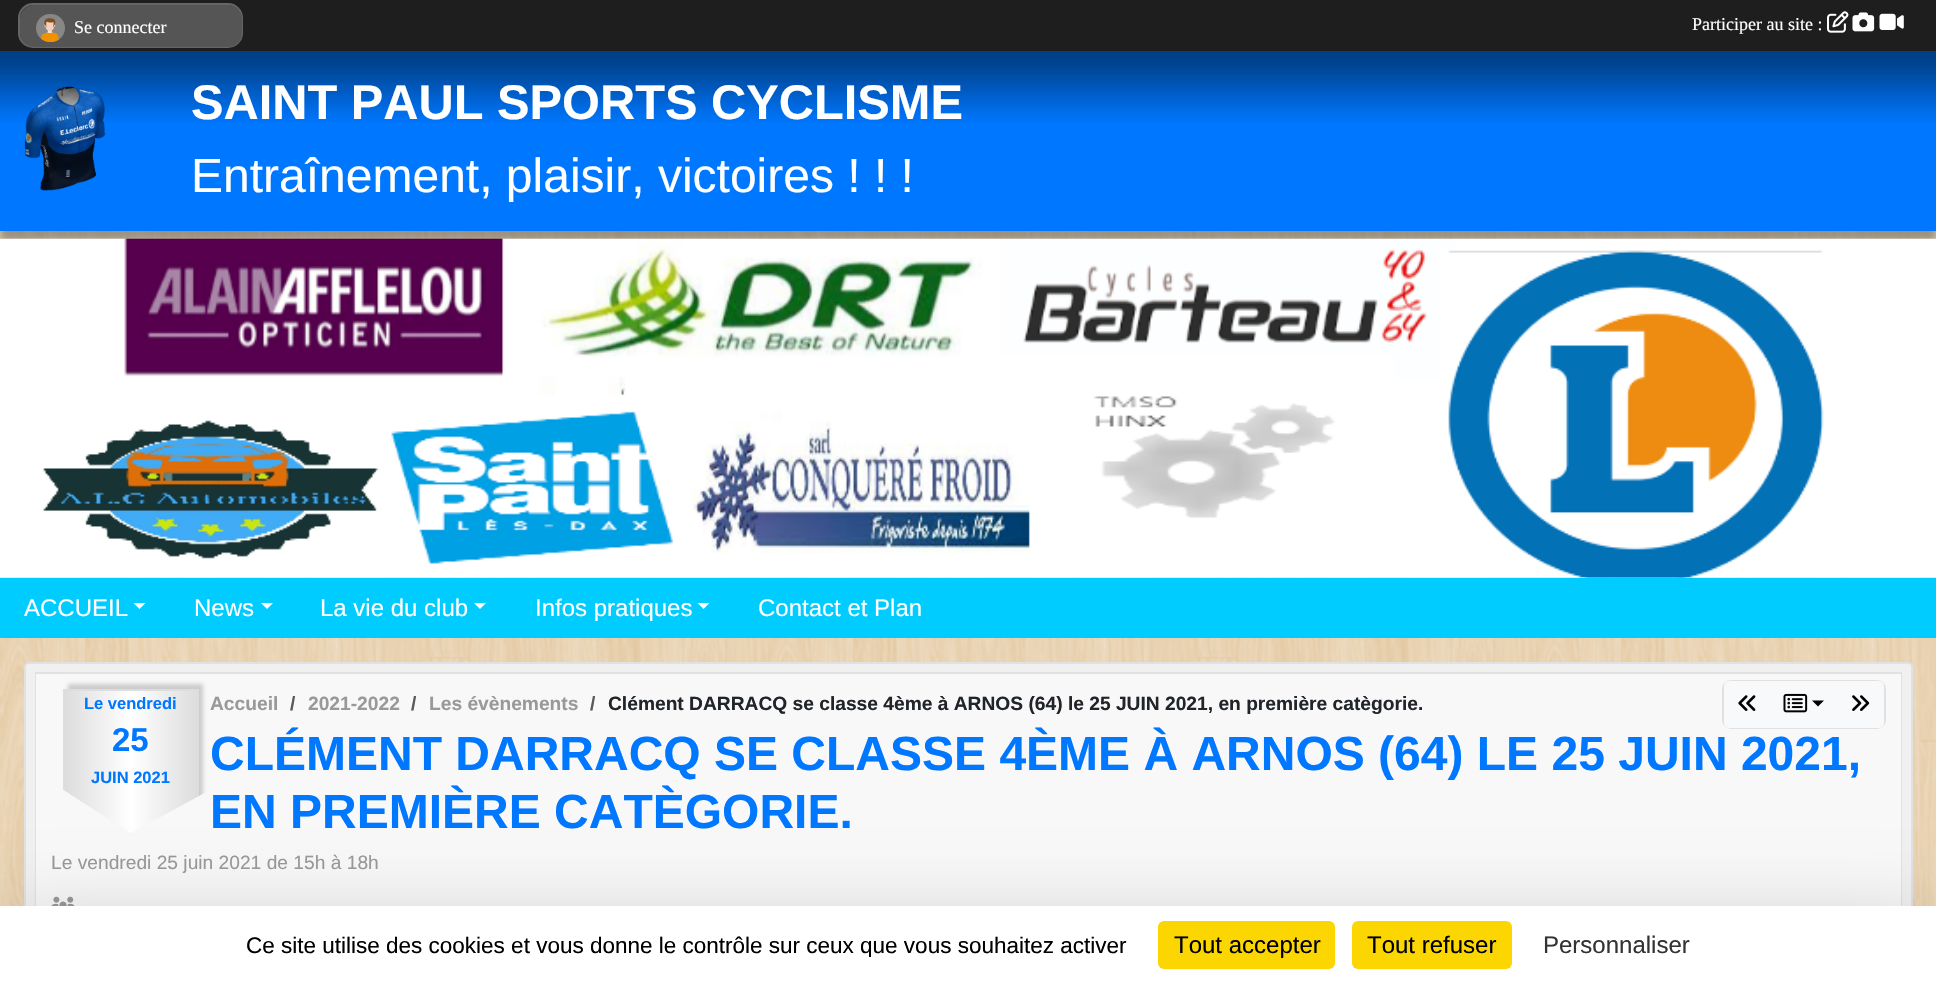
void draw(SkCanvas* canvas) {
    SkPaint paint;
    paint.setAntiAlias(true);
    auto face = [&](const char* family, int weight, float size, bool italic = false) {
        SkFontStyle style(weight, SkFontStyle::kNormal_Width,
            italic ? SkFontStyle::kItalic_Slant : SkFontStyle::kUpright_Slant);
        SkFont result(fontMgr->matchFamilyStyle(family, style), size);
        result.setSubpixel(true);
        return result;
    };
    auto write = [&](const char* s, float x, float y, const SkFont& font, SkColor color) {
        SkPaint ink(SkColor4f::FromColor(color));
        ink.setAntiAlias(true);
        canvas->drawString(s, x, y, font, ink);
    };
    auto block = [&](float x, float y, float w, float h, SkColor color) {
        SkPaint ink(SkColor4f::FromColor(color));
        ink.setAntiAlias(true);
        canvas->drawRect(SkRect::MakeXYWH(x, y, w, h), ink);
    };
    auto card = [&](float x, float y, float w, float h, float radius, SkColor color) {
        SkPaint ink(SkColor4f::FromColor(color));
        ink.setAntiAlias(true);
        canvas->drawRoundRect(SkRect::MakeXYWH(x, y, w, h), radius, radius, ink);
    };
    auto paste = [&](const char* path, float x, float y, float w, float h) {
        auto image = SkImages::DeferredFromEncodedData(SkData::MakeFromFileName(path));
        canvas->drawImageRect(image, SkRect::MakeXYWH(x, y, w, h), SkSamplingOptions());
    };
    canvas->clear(SK_ColorWHITE);
    paste("pic1.png", 0, 231, 1936, 675);
    paint.setColor(SkColorSetARGB(128, 80, 80, 80));
    paint.setMaskFilter(SkMaskFilter::MakeBlur(kNormal_SkBlurStyle, 4));
    canvas->drawRect(SkRect::MakeXYWH(0, 62, 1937, 180), paint);
    paint.setMaskFilter(nullptr);
    block(0, 0, 1936, 51, SkColorSetRGB(30, 30, 30));
    paint.setColor(SkColorSetRGB(51, 51, 51));
    canvas->drawRoundRect(SkRect::MakeXYWH(19, 4, 223, 43), 14, 14, paint);
    paint.setStyle(SkPaint::kStroke_Style);
    paint.setStrokeWidth(2);
    paint.setColor(SkColorSetRGB(102, 102, 102));
    canvas->drawRoundRect(SkRect::MakeXYWH(19, 4, 223, 43), 14, 14, paint);
    card(20, 5, 222, 42, 14, SkColorSetRGB(85, 85, 85));
    paste("pic2.png", 36, 14, 29, 28);
    auto kFont1 = face("Liberation Serif", 400, 18);
    write("Se connecter", 74, 33, kFont1, SK_ColorWHITE);
    write("Participer au site :", 1692, 30, kFont1, SK_ColorWHITE);
    paste("pic3.png", 1827, 11, 22, 22);
    paste("pic4.png", 1852, 12, 23, 20);
    paste("pic5.png", 1879, 13, 25, 17);
    block(0, 51, 1936, 180, SkColorSetRGB(0, 119, 255));
    paste("pic6.png", 0, 51, 1936, 71);
    paste("pic7.png", 24, 86, 82, 105);
    auto kFont2 = face("Liberation Sans", 700, 48.75f);
    write("SAINT PAUL SPORTS CYCLISME", 191, 119, kFont2, SK_ColorWHITE);
    auto kFont3 = face("Liberation Sans", 400, 48);
    write("Entraînement, plaisir, victoires ! ! !", 191, 192, kFont3, SK_ColorWHITE);
    paste("pic8.png", 0, 238, 1936, 340);
    block(0, 578, 1936, 60, SkColorSetRGB(0, 204, 255));
    auto kFont4 = face("Liberation Sans", 400, 24);
    write("ACCUEIL", 24, 616, kFont4, SK_ColorWHITE);
    paint.setStyle(SkPaint::kFill_Style);
    paint.setColor(SK_ColorWHITE);
    canvas->drawPath(SkPathBuilder().moveTo(133.5f, 603).lineTo(145.5f, 603).lineTo(139.5f, 609).close().detach(), paint);
    write("News", 194, 616, kFont4, SK_ColorWHITE);
    canvas->drawPath(SkPathBuilder().moveTo(261, 603).lineTo(273, 603).lineTo(267, 609).close().detach(), paint);
    write("La vie du club", 320, 616, kFont4, SK_ColorWHITE);
    canvas->drawPath(SkPathBuilder().moveTo(474, 603).lineTo(486, 603).lineTo(480, 609).close().detach(), paint);
    write("Infos pratiques", 535, 616, kFont4, SK_ColorWHITE);
    canvas->drawPath(SkPathBuilder().moveTo(697.5f, 603).lineTo(709.5f, 603).lineTo(703.5f, 609).close().detach(), paint);
    write("Contact et Plan", 758, 616, kFont4, SK_ColorWHITE);
    paint.setColor(SkColorSetRGB(240, 240, 240));
    canvas->drawRoundRect(SkRect::MakeXYWH(25, 663, 1887, 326), 4, 4, paint);
    paint.setStyle(SkPaint::kStroke_Style);
    paint.setColor(SkColorSetRGB(225, 225, 225));
    canvas->drawRoundRect(SkRect::MakeXYWH(25, 663, 1887, 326), 4, 4, paint);
    canvas->drawRect(SkRect::MakeXYWH(36, 673, 1865, 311), paint);
    block(36, 674, 1865, 232, SkColorSetRGB(248, 248, 248));
    paint.setStyle(SkPaint::kFill_Style);
    paint.setColor(SkColorSetRGB(204, 204, 204));
    paint.setMaskFilter(SkMaskFilter::MakeBlur(kNormal_SkBlurStyle, 2));
    canvas->drawRect(SkRect::MakeXYWH(68, 684, 135, 146), paint);
    paint.setMaskFilter(nullptr);
    {
        const SkColor colors[] = {SkColorSetRGB(221, 221, 221), SK_ColorWHITE, SkColorSetRGB(221, 221, 221)};
        const float stops[] = {0, 0.5f, 1};
        const SkPoint ends[] = {{-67, 762}, {65, 762}};
        paint.setShader(SkGradientShader::MakeLinear(ends, colors, stops, 3, SkTileMode::kClamp));
        paint.setAlpha(255);
    }
    canvas->drawRect(SkRect::MakeXYWH(63, 689, 2, 102), paint);
    {
        const SkColor colors[] = {SkColorSetRGB(221, 221, 221), SK_ColorWHITE, SkColorSetRGB(221, 221, 221)};
        const float stops[] = {0, 0.5f, 1};
        const SkPoint ends[] = {{65, 762}, {197, 762}};
        paint.setShader(SkGradientShader::MakeLinear(ends, colors, stops, 3, SkTileMode::kClamp));
        paint.setAlpha(255);
    }
    canvas->drawRect(SkRect::MakeXYWH(65, 691, 132, 143), paint);
    block(63, 689, 135, 2, SkColorSetRGB(221, 221, 221));
    block(197, 689, 2, 109, SkColorSetRGB(221, 221, 221));
    auto kFont5 = face("Liberation Sans", 700, 16.5f);
    write("Le vendredi", 84, 709, kFont5, SkColorSetRGB(0, 119, 255));
    auto kFont6 = face("Liberation Sans", 700, 33);
    write("25", 112, 751, kFont6, SkColorSetRGB(0, 119, 255));
    write("JUIN 2021", 91, 783, kFont5, SkColorSetRGB(0, 119, 255));
    paint.setShader(nullptr);
    paint.setColor(SkColorSetRGB(248, 248, 248));
    canvas->drawPath(SkPathBuilder().moveTo(62, 834).lineTo(62, 789).lineTo(132, 834).close().detach(), paint);
    canvas->drawPath(SkPathBuilder().moveTo(212, 789).lineTo(212, 834).lineTo(129, 834).close().detach(), paint);
    auto kFont7 = face("Liberation Sans", 700, 19.2f);
    write("Accueil", 210, 710, kFont7, SkColorSetRGB(153, 153, 153));
    write("/", 290, 710, kFont7, SkColorSetRGB(87, 90, 93));
    write("2021-2022", 308, 710, kFont7, SkColorSetRGB(153, 153, 153));
    write("/", 411, 710, kFont7, SkColorSetRGB(87, 90, 93));
    write("Les évènements", 429, 710, kFont7, SkColorSetRGB(153, 153, 153));
    write("/", 590, 710, kFont7, SkColorSetRGB(87, 90, 93));
    write("Clément DARRACQ se classe 4ème à ARNOS (64) le 25 JUIN 2021, en première catègorie.", 608, 710, kFont7, SkColorSetRGB(33, 37, 41));
    auto kFont8 = face("Liberation Sans", 700, 48);
    write("CLÉMENT DARRACQ SE CLASSE 4ÈME À ARNOS (64) LE 25 JUIN 2021,", 210, 770, kFont8, SkColorSetRGB(0, 119, 255));
    paint.setStyle(SkPaint::kStroke_Style);
    paint.setColor(SkColorSetRGB(225, 225, 225));
    canvas->drawRoundRect(SkRect::MakeXYWH(1723, 681, 162, 47), 8, 8, paint);
    paint.setStyle(SkPaint::kFill_Style);
    paint.setColor(SkColorSetRGB(248, 249, 250));
    canvas->drawPath(SkPathBuilder().moveTo(1730, 682).lineTo(1771, 682).lineTo(1771, 727).lineTo(1730, 727).cubicTo(1727, 727, 1725, 725, 1725, 722).lineTo(1725, 687).cubicTo(1725, 684, 1727, 682, 1730, 682).close().detach(), paint);
    paint.setStyle(SkPaint::kStroke_Style);
    canvas->drawPath(SkPathBuilder().moveTo(1730, 682).lineTo(1771, 682).lineTo(1771, 727).lineTo(1730, 727).cubicTo(1727, 727, 1725, 725, 1725, 722).lineTo(1725, 687).cubicTo(1725, 684, 1727, 682, 1730, 682).close().detach(), paint);
    paste("pic9.png", 1738, 695, 18, 16);
    block(1772, 681, 64, 47, SkColorSetRGB(248, 249, 250));
    paste("pic10.png", 1783, 693, 25, 20);
    paint.setStyle(SkPaint::kFill_Style);
    paint.setColor(SK_ColorBLACK);
    canvas->drawPath(SkPathBuilder().moveTo(1812, 700.5f).lineTo(1824, 700.5f).lineTo(1818, 706.5f).close().detach(), paint);
    paint.setColor(SkColorSetRGB(248, 249, 250));
    canvas->drawPath(SkPathBuilder().moveTo(1837, 682).lineTo(1878, 682).cubicTo(1881, 682, 1883, 684, 1883, 687).lineTo(1883, 722).cubicTo(1883, 725, 1881, 727, 1878, 727).lineTo(1837, 727).close().detach(), paint);
    paint.setStyle(SkPaint::kStroke_Style);
    canvas->drawPath(SkPathBuilder().moveTo(1837, 682).lineTo(1878, 682).cubicTo(1881, 682, 1883, 684, 1883, 687).lineTo(1883, 722).cubicTo(1883, 725, 1881, 727, 1878, 727).lineTo(1837, 727).close().detach(), paint);
    paste("pic11.png", 1852, 695, 18, 16);
    write("EN PREMIÈRE CATÈGORIE.", 210, 828, kFont8, SkColorSetRGB(0, 119, 255));
    auto kFont9 = face("Liberation Sans", 400, 19.2f);
    write("Le vendredi 25 juin 2021 de 15h à 18h", 51, 869, kFont9, SkColorSetRGB(153, 153, 153));
    paste("pic12.png", 51, 896, 24, 10);
    paint.setStyle(SkPaint::kFill_Style);
    paint.setColor(SkColorSetARGB(64, 0, 0, 0));
    paint.setMaskFilter(SkMaskFilter::MakeBlur(kNormal_SkBlurStyle, 45));
    canvas->drawRect(SkRect::MakeXYWH(0, 936, 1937, 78), paint);
    paint.setMaskFilter(nullptr);
    block(0, 906, 1936, 77, SK_ColorWHITE);
    canvas->save();
    canvas->clipRect(SkRect::MakeXYWH(231, 932, 911, 25));
    auto kFont10 = face("Liberation Sans", 400, 22.5f);
    write("Ce site utilise des cookies et vous donne le contrôle sur ceux que vous souhaitez activer", 246, 953, kFont10, SK_ColorBLACK);
    canvas->restore();
    card(1158, 921, 177, 48, 6, SkColorSetRGB(251, 214, 0));
    write("Tout accepter", 1174, 953, kFont4, SK_ColorBLACK);
    card(1352, 921, 160, 48, 6, SkColorSetRGB(251, 214, 0));
    write("Tout refuser", 1367, 953, kFont4, SK_ColorBLACK);
    write("Personnaliser", 1543, 953, kFont4, SkColorSetRGB(51, 51, 51));
}
